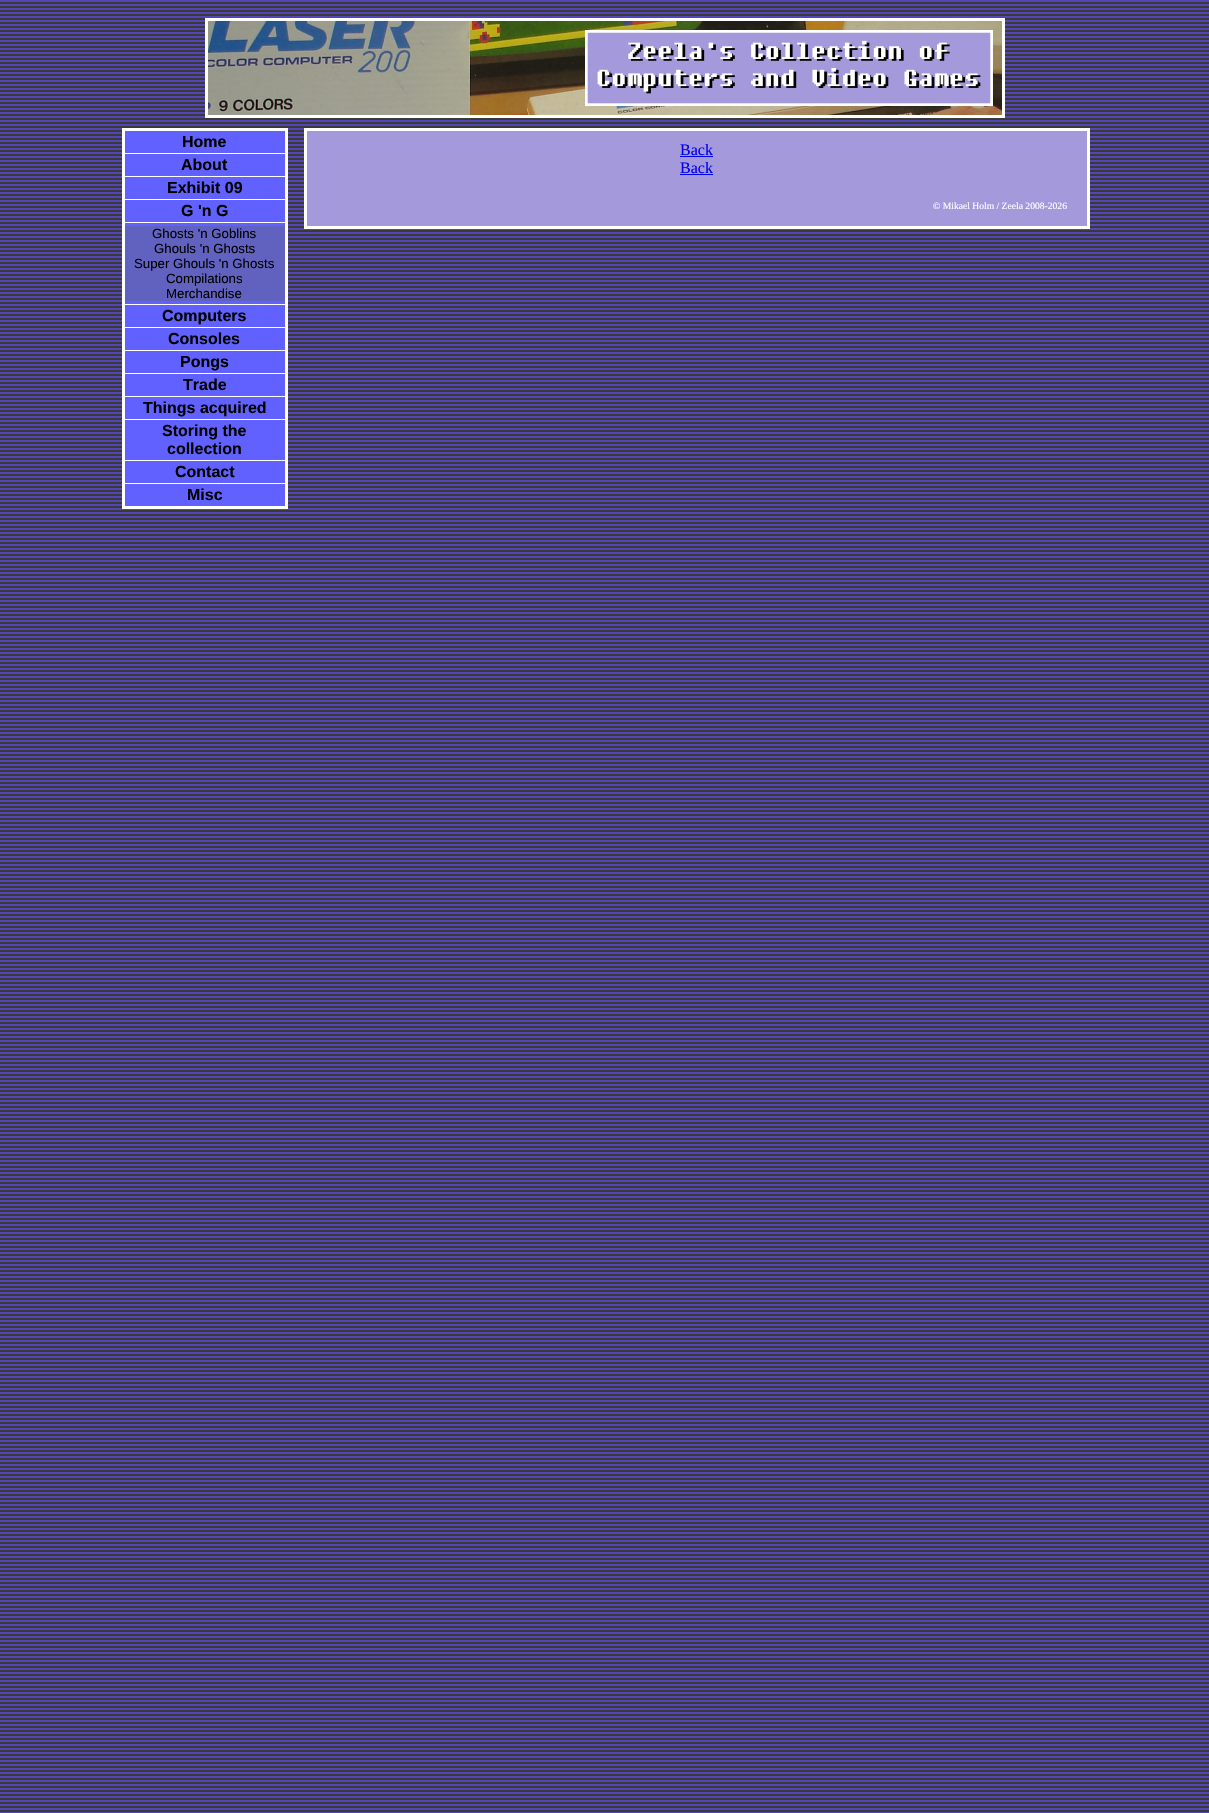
void draw(SkCanvas* canvas) {
    SkPaint paint;
    paint.setAntiAlias(true);
    auto face = [&](const char* family, int weight, float size, bool italic = false) {
        SkFontStyle style(weight, SkFontStyle::kNormal_Width,
            italic ? SkFontStyle::kItalic_Slant : SkFontStyle::kUpright_Slant);
        SkFont result(fontMgr->matchFamilyStyle(family, style), size);
        result.setSubpixel(true);
        return result;
    };
    auto write = [&](const char* s, float x, float y, const SkFont& font, SkColor color) {
        SkPaint ink(SkColor4f::FromColor(color));
        ink.setAntiAlias(true);
        canvas->drawString(s, x, y, font, ink);
    };
    auto block = [&](float x, float y, float w, float h, SkColor color) {
        SkPaint ink(SkColor4f::FromColor(color));
        ink.setAntiAlias(true);
        canvas->drawRect(SkRect::MakeXYWH(x, y, w, h), ink);
    };
    auto paste = [&](const char* path, float x, float y, float w, float h) {
        auto image = SkImages::DeferredFromEncodedData(SkData::MakeFromFileName(path));
        canvas->drawImageRect(image, SkRect::MakeXYWH(x, y, w, h), SkSamplingOptions());
    };
    canvas->clear(SK_ColorWHITE);
    paste("pic1.png", 0, 0, 1209, 1813);
    paste("pic2.png", 205, 18, 800, 100);
    block(125, 131, 160, 375, SkColorSetRGB(97, 97, 255));
    block(122, 128, 166, 3, SK_ColorWHITE);
    block(285, 128, 3, 381, SK_ColorWHITE);
    block(122, 507, 166, 2, SK_ColorWHITE);
    block(122, 128, 3, 381, SK_ColorWHITE);
    block(125, 153, 160, 1, SK_ColorWHITE);
    auto kFont1 = face("Liberation Sans", 700, 16);
    write("Home", 182, 147, kFont1, SK_ColorBLACK);
    block(125, 176, 160, 1, SK_ColorWHITE);
    write("About", 181, 170, kFont1, SK_ColorBLACK);
    block(125, 199, 160, 1, SK_ColorWHITE);
    write("Exhibit 09", 167, 193, kFont1, SK_ColorBLACK);
    block(125, 222, 160, 1, SK_ColorWHITE);
    write("G 'n G", 181, 216, kFont1, SK_ColorBLACK);
    block(125, 304, 160, 1, SK_ColorWHITE);
    block(125, 226, 160, 75, SkColorSetRGB(97, 97, 191));
    auto kFont2 = face("Liberation Sans", 400, 13.25f);
    write("Ghosts 'n Goblins", 152, 238, kFont2, SK_ColorBLACK);
    write("Ghouls 'n Ghosts", 154, 253, kFont2, SK_ColorBLACK);
    write("Super Ghouls 'n Ghosts", 134, 268, kFont2, SK_ColorBLACK);
    write("Compilations", 166, 283, kFont2, SK_ColorBLACK);
    write("Merchandise", 166, 298, kFont2, SK_ColorBLACK);
    block(125, 327, 160, 1, SK_ColorWHITE);
    write("Computers", 162, 321, kFont1, SK_ColorBLACK);
    block(125, 350, 160, 1, SK_ColorWHITE);
    write("Consoles", 168, 344, kFont1, SK_ColorBLACK);
    block(125, 373, 160, 1, SK_ColorWHITE);
    write("Pongs", 180, 367, kFont1, SK_ColorBLACK);
    block(125, 396, 160, 1, SK_ColorWHITE);
    write("Trade", 183, 390, kFont1, SK_ColorBLACK);
    block(125, 419, 160, 1, SK_ColorWHITE);
    write("Things acquired", 143, 413, kFont1, SK_ColorBLACK);
    block(125, 460, 160, 1, SK_ColorWHITE);
    write("Storing the", 162, 436, kFont1, SK_ColorBLACK);
    write("collection", 167, 454, kFont1, SK_ColorBLACK);
    block(125, 483, 160, 1, SK_ColorWHITE);
    write("Contact", 175, 477, kFont1, SK_ColorBLACK);
    block(125, 506, 160, 1, SK_ColorWHITE);
    write("Misc", 187, 500, kFont1, SK_ColorBLACK);
    paint.setColor(SkColorSetRGB(163, 153, 219));
    canvas->drawRect(SkRect::MakeXYWH(305.5f, 129.5f, 783, 98), paint);
    paint.setStyle(SkPaint::kStroke_Style);
    paint.setStrokeWidth(3);
    paint.setColor(SK_ColorWHITE);
    canvas->drawRect(SkRect::MakeXYWH(305.5f, 129.5f, 783, 98), paint);
    auto kFont3 = face("Liberation Serif", 400, 16);
    write("Back", 680, 155, kFont3, SkColorSetRGB(0, 0, 238));
    block(680, 156, 33, 1, SkColorSetRGB(0, 0, 238));
    write("Back", 680, 173, kFont3, SkColorSetRGB(0, 0, 238));
    block(680, 174, 33, 1, SkColorSetRGB(0, 0, 238));
    auto kFont4 = face("Liberation Serif", 400, 9.6f);
    write("© Mikael Holm / Zeela 2008-2026", 933, 209, kFont4, SK_ColorWHITE);
}
